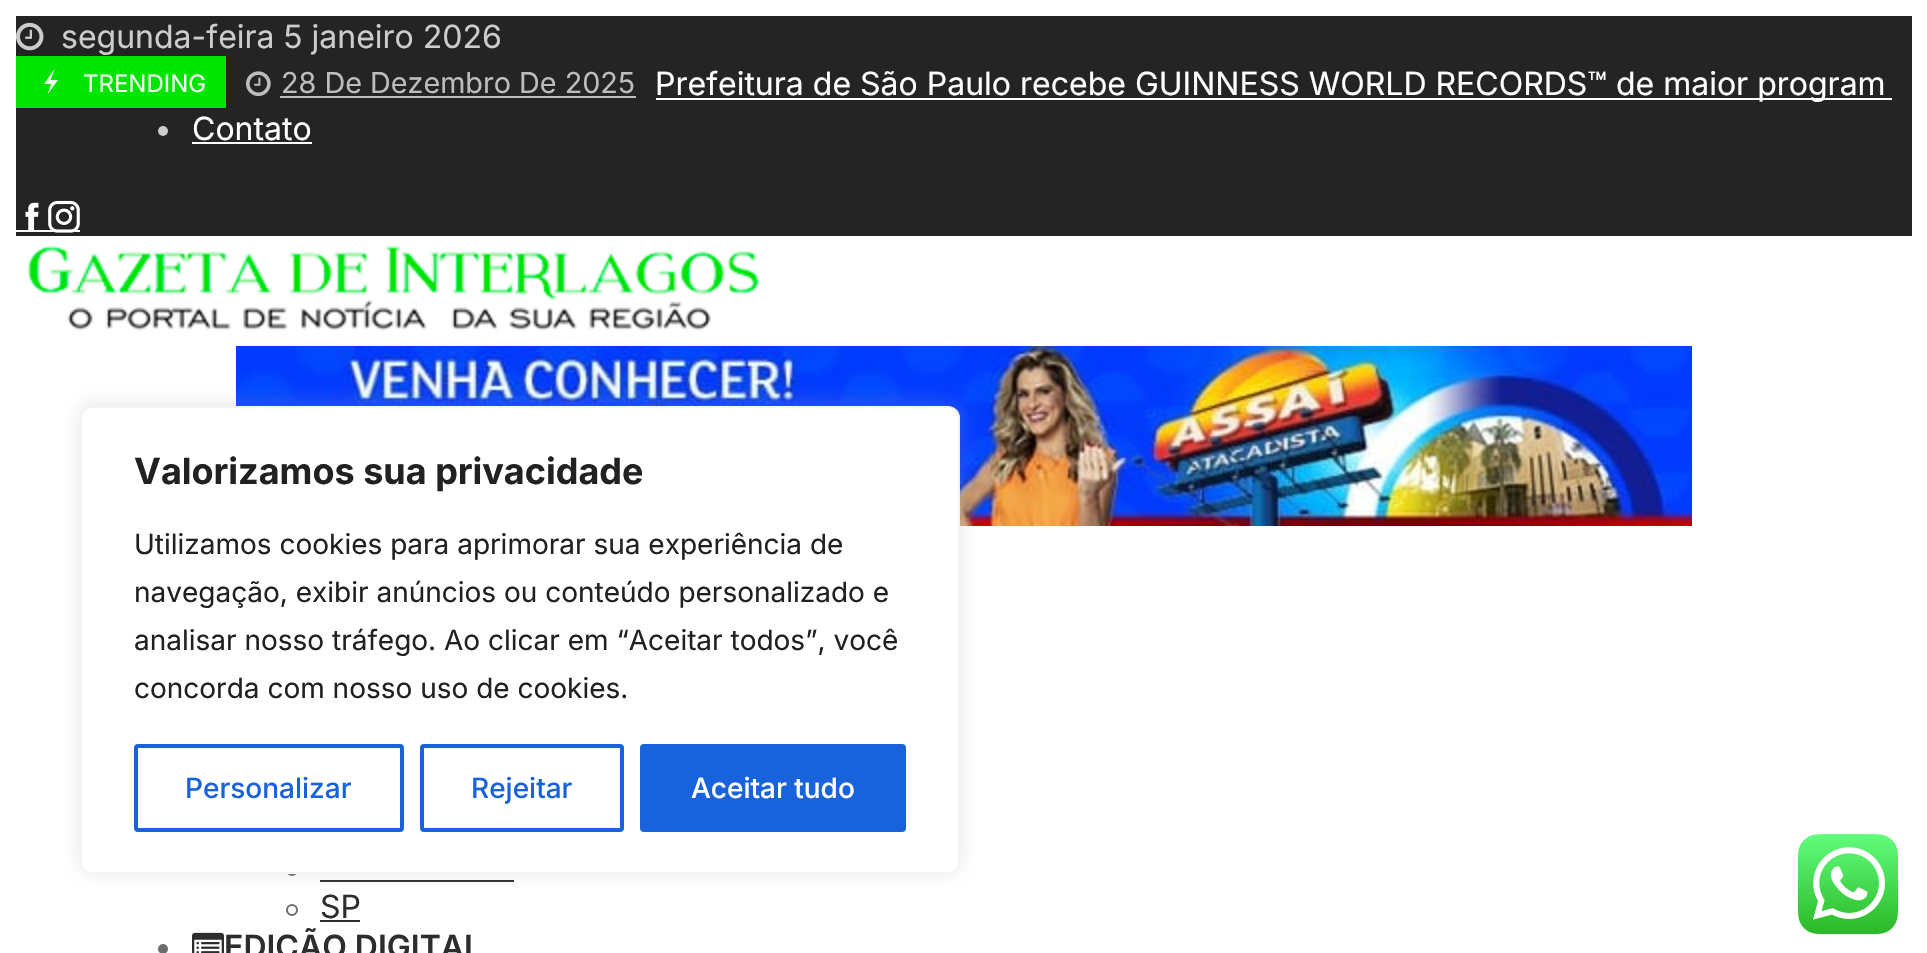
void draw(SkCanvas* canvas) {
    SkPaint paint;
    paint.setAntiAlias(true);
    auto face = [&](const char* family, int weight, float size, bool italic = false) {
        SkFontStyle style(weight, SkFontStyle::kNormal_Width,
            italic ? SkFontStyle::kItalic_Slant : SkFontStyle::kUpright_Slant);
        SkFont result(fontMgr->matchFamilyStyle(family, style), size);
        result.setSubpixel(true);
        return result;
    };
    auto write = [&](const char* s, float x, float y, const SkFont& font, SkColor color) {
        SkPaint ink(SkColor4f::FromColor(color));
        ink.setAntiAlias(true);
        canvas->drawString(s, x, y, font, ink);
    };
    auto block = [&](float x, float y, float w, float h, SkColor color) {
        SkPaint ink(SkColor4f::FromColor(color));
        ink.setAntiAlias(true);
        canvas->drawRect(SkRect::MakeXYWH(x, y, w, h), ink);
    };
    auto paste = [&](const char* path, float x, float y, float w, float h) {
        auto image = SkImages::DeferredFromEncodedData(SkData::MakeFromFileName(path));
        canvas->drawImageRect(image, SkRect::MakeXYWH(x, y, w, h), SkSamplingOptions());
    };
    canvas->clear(SK_ColorWHITE);
    block(16, 16, 1896, 220, SkColorSetRGB(36, 36, 36));
    paste("pic1.png", 16, 22, 28, 29);
    auto kFont1 = face("Inter", 400, 32);
    write("segunda-feira 5 janeiro 2026", 61, 48, kFont1, SkColorSetRGB(204, 204, 204));
    block(16, 56, 210, 52, SkColorSetRGB(0, 229, 0));
    paint.setColor(SkColorSetRGB(240, 255, 240));
    canvas->drawPath(SkPathBuilder().moveTo(50.5f, 80).lineTo(58, 80).lineTo(47.5f, 94.5f).lineTo(51, 84).lineTo(44, 84).lineTo(55, 68.5f).close().detach(), paint);
    auto kFont2 = face("Inter", 400, 24);
    write("TRENDING", 83, 92, kFont2, SkColorSetRGB(240, 255, 240));
    paste("pic2.png", 246, 71, 25, 26);
    auto kFont3 = face("Inter", 400, 28.75f);
    write("28 De Dezembro De 2025", 281, 93, kFont3, SkColorSetRGB(189, 189, 189));
    block(280, 96, 356, 2, SkColorSetRGB(189, 189, 189));
    block(656, 98, 1236, 2, SK_ColorWHITE);
    write("Prefeitura de São Paulo recebe GUINNESS WORLD RECORDS™ de maior program", 655, 95, kFont1, SK_ColorWHITE);
    paint.setColor(SkColorSetRGB(204, 204, 204));
    canvas->drawCircle(163, 131, 5, paint);
    write("Contato", 192, 140, kFont1, SK_ColorWHITE);
    block(192, 142, 120, 2, SK_ColorWHITE);
    paste("pic3.png", 25, 202, 14, 28);
    block(16, 230, 64, 2, SK_ColorWHITE);
    paste("pic4.png", 48, 200, 32, 33);
    paste("pic5.png", 27, 245, 732, 86);
    paste("pic6.png", 236, 346, 1456, 180);
    paint.setStyle(SkPaint::kStroke_Style);
    paint.setStrokeWidth(2);
    paint.setColor(SkColorSetRGB(109, 109, 109));
    canvas->drawCircle(292, 870, 5, paint);
    block(320, 880, 194, 2, SkColorSetRGB(45, 45, 45));
    canvas->drawCircle(292, 910, 5, paint);
    write("SP", 320, 918, kFont1, SkColorSetRGB(45, 45, 45));
    block(320, 920, 40, 2, SkColorSetRGB(45, 45, 45));
    paint.setStyle(SkPaint::kFill_Style);
    canvas->drawCircle(163, 949, 5, paint);
    paste("pic7.png", 192, 932, 32, 21);
    auto kFont4 = face("Inter", 600, 32);
    write("EDIÇÃO DIGITAL", 224, 958, kFont4, SkColorSetRGB(45, 45, 45));
    paint.setColor(SkColorSetARGB(77, 172, 171, 171));
    paint.setMaskFilter(SkMaskFilter::MakeBlur(kNormal_SkBlurStyle, 10));
    canvas->drawRoundRect(SkRect::MakeXYWH(80, 404, 880, 468), 12, 12, paint);
    paint.setMaskFilter(nullptr);
    paint.setColor(SK_ColorWHITE);
    canvas->drawRoundRect(SkRect::MakeXYWH(81, 407, 878, 466), 11, 11, paint);
    paint.setStyle(SkPaint::kStroke_Style);
    paint.setColor(SkColorSetRGB(244, 244, 244));
    canvas->drawRoundRect(SkRect::MakeXYWH(81, 407, 878, 466), 11, 11, paint);
    auto kFont5 = face("Inter", 700, 36);
    write("Valorizamos sua privacidade", 134, 484, kFont5, SkColorSetRGB(33, 33, 33));
    auto kFont6 = face("Inter", 400, 28);
    write("Utilizamos cookies para aprimorar sua experiência de", 134, 554, kFont6, SkColorSetRGB(33, 33, 33));
    write("navegação, exibir anúncios ou conteúdo personalizado e", 134, 602, kFont6, SkColorSetRGB(33, 33, 33));
    write("analisar nosso tráfego. Ao clicar em “Aceitar todos”, você", 134, 650, kFont6, SkColorSetRGB(33, 33, 33));
    write("concorda com nosso uso de cookies.", 134, 698, kFont6, SkColorSetRGB(33, 33, 33));
    paint.setStrokeWidth(4);
    paint.setColor(SkColorSetRGB(24, 99, 220));
    canvas->drawRoundRect(SkRect::MakeXYWH(136, 746, 266, 84), 2, 2, paint);
    auto kFont7 = face("Inter", 500, 28);
    write("Personalizar", 185, 798, kFont7, SkColorSetRGB(24, 99, 220));
    canvas->drawRoundRect(SkRect::MakeXYWH(422, 746, 200, 84), 2, 2, paint);
    write("Rejeitar", 471, 798, kFont7, SkColorSetRGB(24, 99, 220));
    paint.setStyle(SkPaint::kFill_Style);
    canvas->drawRoundRect(SkRect::MakeXYWH(642, 746, 262, 84), 2, 2, paint);
    paint.setStyle(SkPaint::kStroke_Style);
    canvas->drawRoundRect(SkRect::MakeXYWH(642, 746, 262, 84), 2, 2, paint);
    write("Aceitar tudo", 691, 798, kFont7, SK_ColorWHITE);
    paste("pic8.png", 1798, 834, 100, 100);
}
